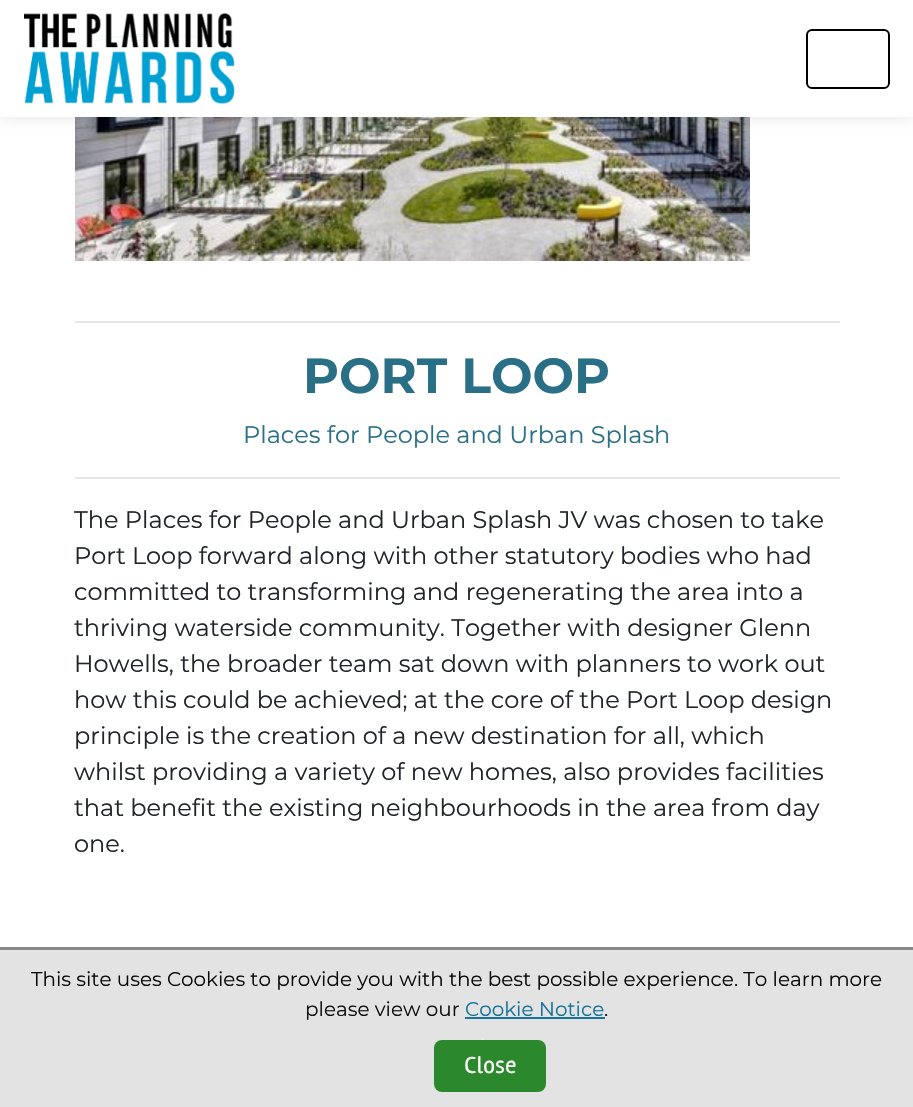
void draw(SkCanvas* canvas) {
    SkPaint paint;
    paint.setAntiAlias(true);
    auto face = [&](const char* family, int weight, float size, bool italic = false) {
        SkFontStyle style(weight, SkFontStyle::kNormal_Width,
            italic ? SkFontStyle::kItalic_Slant : SkFontStyle::kUpright_Slant);
        SkFont result(fontMgr->matchFamilyStyle(family, style), size);
        result.setSubpixel(true);
        return result;
    };
    auto write = [&](const char* s, float x, float y, const SkFont& font, SkColor color) {
        SkPaint ink(SkColor4f::FromColor(color));
        ink.setAntiAlias(true);
        canvas->drawString(s, x, y, font, ink);
    };
    auto block = [&](float x, float y, float w, float h, SkColor color) {
        SkPaint ink(SkColor4f::FromColor(color));
        ink.setAntiAlias(true);
        canvas->drawRect(SkRect::MakeXYWH(x, y, w, h), ink);
    };
    auto card = [&](float x, float y, float w, float h, float radius, SkColor color) {
        SkPaint ink(SkColor4f::FromColor(color));
        ink.setAntiAlias(true);
        canvas->drawRoundRect(SkRect::MakeXYWH(x, y, w, h), radius, radius, ink);
    };
    auto paste = [&](const char* path, float x, float y, float w, float h) {
        auto image = SkImages::DeferredFromEncodedData(SkData::MakeFromFileName(path));
        canvas->drawImageRect(image, SkRect::MakeXYWH(x, y, w, h), SkSamplingOptions());
    };
    canvas->clear(SK_ColorWHITE);
    paste("pic2.png", 75, 117, 675, 144);
    paint.setColor(SkColorSetARGB(26, 0, 0, 0));
    paint.setMaskFilter(SkMaskFilter::MakeBlur(kNormal_SkBlurStyle, 7.5f));
    canvas->drawRect(SkRect::MakeXYWH(0, 0, 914, 117), paint);
    paint.setMaskFilter(nullptr);
    block(0, 0, 913, 117, SK_ColorWHITE);
    paste("pic1.png", 24, 13, 211, 91);
    paint.setStyle(SkPaint::kStroke_Style);
    paint.setStrokeWidth(2);
    paint.setColor(SK_ColorBLACK);
    canvas->drawRoundRect(SkRect::MakeXYWH(807, 30, 82, 58), 5, 5, paint);
    block(75, 321, 765, 2, SkColorSetRGB(230, 230, 230));
    auto kFont1 = face("Montserrat", 700, 49.25f);
    write("PORT LOOP", 303, 393, kFont1, SkColorSetRGB(41, 111, 133));
    auto kFont2 = face("Montserrat", 400, 24);
    write("Places for People and Urban Splash", 243, 443, kFont2, SkColorSetRGB(41, 111, 133));
    block(75, 477, 765, 2, SkColorSetRGB(230, 230, 230));
    write("The Places for People and Urban Splash JV was chosen to take", 74, 528, kFont2, SkColorSetRGB(33, 37, 41));
    write("Port Loop forward along with other statutory bodies who had", 74, 564, kFont2, SkColorSetRGB(33, 37, 41));
    write("committed to transforming and regenerating the area into a", 74, 600, kFont2, SkColorSetRGB(33, 37, 41));
    write("thriving waterside community. Together with designer Glenn", 74, 636, kFont2, SkColorSetRGB(33, 37, 41));
    write("Howells, the broader team sat down with planners to work out", 74, 672, kFont2, SkColorSetRGB(33, 37, 41));
    write("how this could be achieved; at the core of the Port Loop design", 74, 708, kFont2, SkColorSetRGB(33, 37, 41));
    write("principle is the creation of a new destination for all, which", 74, 744, kFont2, SkColorSetRGB(33, 37, 41));
    write("whilst providing a variety of new homes, also provides facilities", 74, 780, kFont2, SkColorSetRGB(33, 37, 41));
    write("that benefit the existing neighbourhoods in the area from day", 74, 816, kFont2, SkColorSetRGB(33, 37, 41));
    write("one.", 74, 852, kFont2, SkColorSetRGB(33, 37, 41));
    block(0, 947, 913, 3, SkColorSetRGB(136, 136, 136));
    block(0, 950, 913, 157, SkColorSetRGB(227, 227, 227));
    block(482, 1038, 2, 30, SkColorSetRGB(235, 235, 235));
    auto kFont3 = face("Montserrat", 400, 19.95f);
    write("This site uses Cookies to provide you with the best possible experience. To learn more", 31, 986, kFont3, SkColorSetRGB(10, 10, 10));
    write("please view our", 305, 1016, kFont3, SkColorSetRGB(16, 16, 16));
    write("Cookie Notice", 465, 1016, kFont3, SkColorSetRGB(21, 114, 153));
    block(465, 1017, 140, 2, SkColorSetARGB(237, 6, 106, 147));
    write(".", 604, 1016, kFont3, SkColorSetRGB(16, 16, 16));
    card(434, 1040, 112, 52, 8, SkColorSetARGB(237, 30, 129, 30));
    auto kFont4 = face("Rambla", 400, 24);
    write("Close", 464, 1073, kFont4, SkColorSetRGB(247, 247, 247));
}
